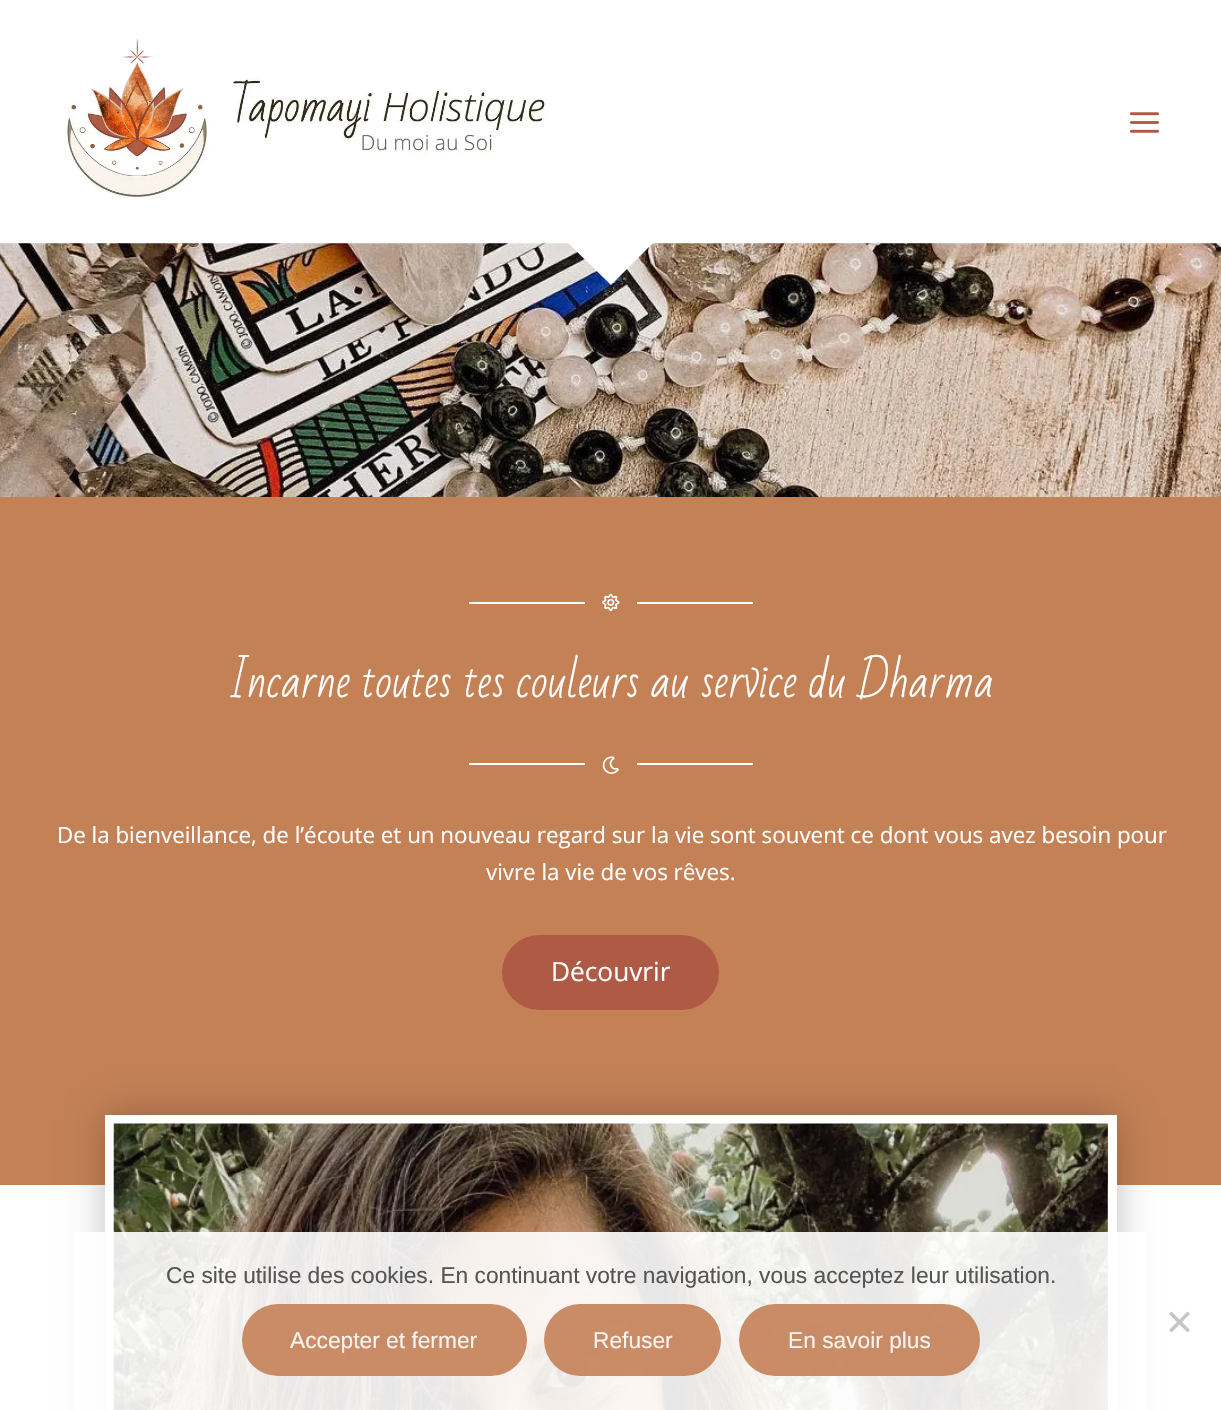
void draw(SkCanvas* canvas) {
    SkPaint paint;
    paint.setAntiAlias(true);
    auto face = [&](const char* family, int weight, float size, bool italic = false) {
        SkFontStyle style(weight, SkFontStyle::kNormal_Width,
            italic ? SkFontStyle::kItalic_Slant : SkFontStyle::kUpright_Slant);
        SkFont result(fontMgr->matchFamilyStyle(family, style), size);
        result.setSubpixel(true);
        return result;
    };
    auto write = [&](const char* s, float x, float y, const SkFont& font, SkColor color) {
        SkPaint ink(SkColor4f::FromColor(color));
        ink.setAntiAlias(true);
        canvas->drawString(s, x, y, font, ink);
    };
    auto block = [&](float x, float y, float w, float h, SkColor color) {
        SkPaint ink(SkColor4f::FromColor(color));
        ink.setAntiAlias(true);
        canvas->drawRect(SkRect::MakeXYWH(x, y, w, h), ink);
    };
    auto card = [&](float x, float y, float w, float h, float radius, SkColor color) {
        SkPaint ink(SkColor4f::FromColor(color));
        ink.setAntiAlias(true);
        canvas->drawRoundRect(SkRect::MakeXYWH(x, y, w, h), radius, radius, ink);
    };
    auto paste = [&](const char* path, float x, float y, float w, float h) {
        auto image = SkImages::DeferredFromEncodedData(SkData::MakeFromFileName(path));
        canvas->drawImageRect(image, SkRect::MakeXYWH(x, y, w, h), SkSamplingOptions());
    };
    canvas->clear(SK_ColorWHITE);
    paste("pic1.png", 65, 38, 481, 161);
    paste("pic2.png", 1129, 112, 31, 21);
    paste("pic3.png", 0, 243, 1221, 254);
    paint.setColor(SK_ColorWHITE);
    canvas->drawPath(SkPathBuilder().moveTo(611, 285).lineTo(567, 242).lineTo(654, 242).close().detach(), paint);
    block(0, 497, 1221, 688, SkColorSetRGB(196, 129, 86));
    block(469, 602, 116, 2, SK_ColorWHITE);
    paste("pic4.png", 602, 593, 18, 19);
    block(637, 602, 116, 2, SK_ColorWHITE);
    auto kFont1 = face("Bad Script", 400, 43.75f);
    write("Incarne toutes tes couleurs au service du Dharma", 228, 697, kFont1, SK_ColorWHITE);
    block(469, 763, 116, 2, SK_ColorWHITE);
    paste("pic5.png", 602, 756, 17, 18);
    block(637, 763, 116, 2, SK_ColorWHITE);
    auto kFont2 = face("Open Sans", 400, 22.35f);
    write("De la bienveillance, de l’écoute et un nouveau regard sur la vie sont souvent ce dont vous avez besoin pour", 57, 843, kFont2, SK_ColorWHITE);
    write("vivre la vie de vos rêves.", 486, 880, kFont2, SK_ColorWHITE);
    card(502, 935, 217, 75, 37.5f, SkColorSetRGB(174, 90, 68));
    auto kFont3 = face("Open Sans", 400, 26.25f);
    write("Découvrir", 551, 981, kFont3, SK_ColorWHITE);
    paint.setColor(SkColorSetARGB(64, 0, 0, 0));
    paint.setMaskFilter(SkMaskFilter::MakeBlur(kNormal_SkBlurStyle, 17.5f));
    canvas->drawRect(SkRect::MakeXYWH(105, 1115, 1012, 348), paint);
    paint.setMaskFilter(nullptr);
    paint.setStyle(SkPaint::kStroke_Style);
    paint.setStrokeWidth(9);
    paint.setColor(SK_ColorWHITE);
    canvas->drawRect(SkRect::MakeXYWH(109.5f, 1119.5f, 1003, 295), paint);
    paste("pic6.png", 113, 1123, 995, 287);
    block(75, 1232, 1072, 178, SkColorSetARGB(230, 255, 255, 255));
    auto kFont4 = face("Liberation Sans", 400, 22.75f);
    write("Ce site utilise des cookies. En continuant votre navigation, vous acceptez leur utilisation.", 166, 1283, kFont4, SkColorSetRGB(85, 85, 85));
    paint.setStyle(SkPaint::kFill_Style);
    paint.setColor(SkColorSetRGB(198, 198, 198));
    canvas->drawPath(SkPathBuilder().moveTo(1187.5f, 1311.5f).lineTo(1190, 1314).lineTo(1171.5f, 1332.5f).lineTo(1169, 1330).close().detach(), paint);
    canvas->drawPath(SkPathBuilder().moveTo(1169, 1314).lineTo(1171.5f, 1311.5f).lineTo(1190, 1330).lineTo(1187.5f, 1332.5f).close().detach(), paint);
    card(242, 1304, 285, 72, 36, SkColorSetARGB(230, 196, 129, 86));
    write("Accepter et fermer", 290, 1348, kFont4, SkColorSetRGB(250, 243, 240));
    card(544, 1304, 177, 72, 36, SkColorSetARGB(230, 196, 129, 86));
    write("Refuser", 593, 1348, kFont4, SkColorSetRGB(250, 243, 240));
    card(739, 1304, 241, 72, 36, SkColorSetARGB(230, 196, 129, 86));
    write("En savoir plus", 788, 1348, kFont4, SkColorSetRGB(250, 243, 240));
}
